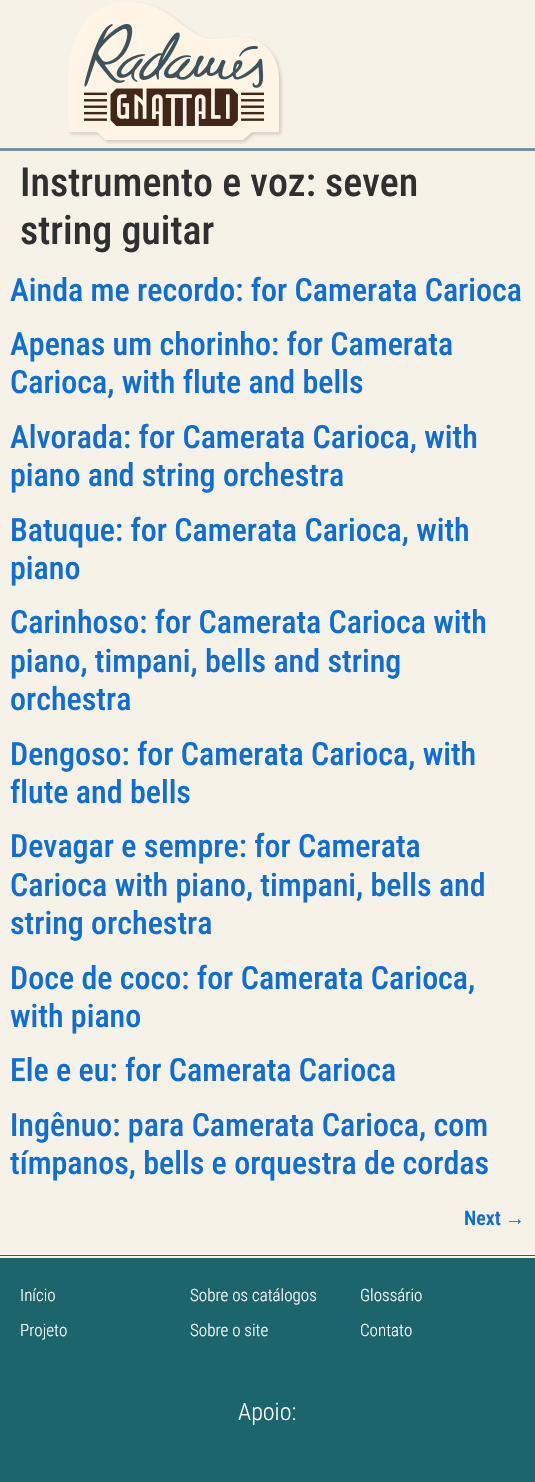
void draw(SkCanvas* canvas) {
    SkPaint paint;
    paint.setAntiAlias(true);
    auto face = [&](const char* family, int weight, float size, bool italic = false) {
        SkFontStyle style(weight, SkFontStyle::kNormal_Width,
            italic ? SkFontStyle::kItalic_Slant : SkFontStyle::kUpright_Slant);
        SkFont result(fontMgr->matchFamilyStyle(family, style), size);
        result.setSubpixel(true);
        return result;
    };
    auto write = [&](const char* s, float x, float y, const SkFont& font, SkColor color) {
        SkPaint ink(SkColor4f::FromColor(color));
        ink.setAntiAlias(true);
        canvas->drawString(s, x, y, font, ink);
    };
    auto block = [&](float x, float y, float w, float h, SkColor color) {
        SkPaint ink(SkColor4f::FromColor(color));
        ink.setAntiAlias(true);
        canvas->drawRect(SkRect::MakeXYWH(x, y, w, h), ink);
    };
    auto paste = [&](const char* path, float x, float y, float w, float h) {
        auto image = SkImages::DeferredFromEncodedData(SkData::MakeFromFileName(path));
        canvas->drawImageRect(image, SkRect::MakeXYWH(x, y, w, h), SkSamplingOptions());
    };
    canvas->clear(SkColorSetRGB(246, 242, 232));
    block(0, 148, 535, 3, SkColorSetRGB(118, 145, 157));
    paste("pic1.png", 68, 2, 215, 142);
    auto kFont1 = face("Roboto Condensed", 500, 40);
    write("Instrumento e voz: seven", 20, 196, kFont1, SkColorSetRGB(47, 47, 47));
    write("string guitar", 20, 244, kFont1, SkColorSetRGB(47, 47, 47));
    auto kFont2 = face("Roboto Condensed", 500, 32);
    write("Ainda me recordo: for Camerata Carioca", 10, 301, kFont2, SkColorSetRGB(15, 109, 214));
    write("Apenas um chorinho: for Camerata", 10, 355, kFont2, SkColorSetRGB(15, 109, 214));
    write("Carioca, with flute and bells", 10, 393, kFont2, SkColorSetRGB(15, 109, 214));
    write("Alvorada: for Camerata Carioca, with", 10, 448, kFont2, SkColorSetRGB(15, 109, 214));
    write("piano and string orchestra", 10, 486, kFont2, SkColorSetRGB(15, 109, 214));
    write("Batuque: for Camerata Carioca, with", 10, 541, kFont2, SkColorSetRGB(15, 109, 214));
    write("piano", 10, 579, kFont2, SkColorSetRGB(15, 109, 214));
    write("Carinhoso: for Camerata Carioca with", 10, 633, kFont2, SkColorSetRGB(15, 109, 214));
    write("piano, timpani, bells and string", 10, 672, kFont2, SkColorSetRGB(15, 109, 214));
    write("orchestra", 10, 710, kFont2, SkColorSetRGB(15, 109, 214));
    write("Dengoso: for Camerata Carioca, with", 10, 765, kFont2, SkColorSetRGB(15, 109, 214));
    write("flute and bells", 10, 803, kFont2, SkColorSetRGB(15, 109, 214));
    write("Devagar e sempre: for Camerata", 10, 857, kFont2, SkColorSetRGB(15, 109, 214));
    write("Carioca with piano, timpani, bells and", 10, 896, kFont2, SkColorSetRGB(15, 109, 214));
    write("string orchestra", 10, 934, kFont2, SkColorSetRGB(15, 109, 214));
    write("Doce de coco: for Camerata Carioca,", 10, 989, kFont2, SkColorSetRGB(15, 109, 214));
    write("with piano", 10, 1027, kFont2, SkColorSetRGB(15, 109, 214));
    write("Ele e eu: for Camerata Carioca", 10, 1081, kFont2, SkColorSetRGB(15, 109, 214));
    write("Ingênuo: para Camerata Carioca, com", 10, 1136, kFont2, SkColorSetRGB(15, 109, 214));
    write("tímpanos, bells e orquestra de cordas", 10, 1174, kFont2, SkColorSetRGB(15, 109, 214));
    auto kFont3 = face("Roboto Condensed", 600, 20);
    write("Next", 464, 1225, kFont3, SkColorSetRGB(15, 109, 214));
    auto kFont4 = face("Liberation Sans", 700, 20);
    write("→", 505, 1225, kFont4, SkColorSetRGB(15, 109, 214));
    block(0, 1255, 535, 227, SkColorSetRGB(29, 101, 109));
    block(0, 1253, 535, 2, SkColorSetRGB(255, 245, 230));
    block(0, 1256, 535, 2, SkColorSetRGB(255, 245, 230));
    auto kFont5 = face("Roboto Condensed", 300, 17);
    write("Início", 20, 1301, kFont5, SK_ColorWHITE);
    write("Projeto", 20, 1336, kFont5, SK_ColorWHITE);
    write("Sobre os catálogos", 190, 1301, kFont5, SK_ColorWHITE);
    write("Sobre o site", 190, 1336, kFont5, SK_ColorWHITE);
    write("Glossário", 360, 1301, kFont5, SK_ColorWHITE);
    write("Contato", 360, 1336, kFont5, SK_ColorWHITE);
    auto kFont6 = face("Roboto Condensed", 300, 24);
    write("Apoio:", 238, 1420, kFont6, SK_ColorWHITE);
}
